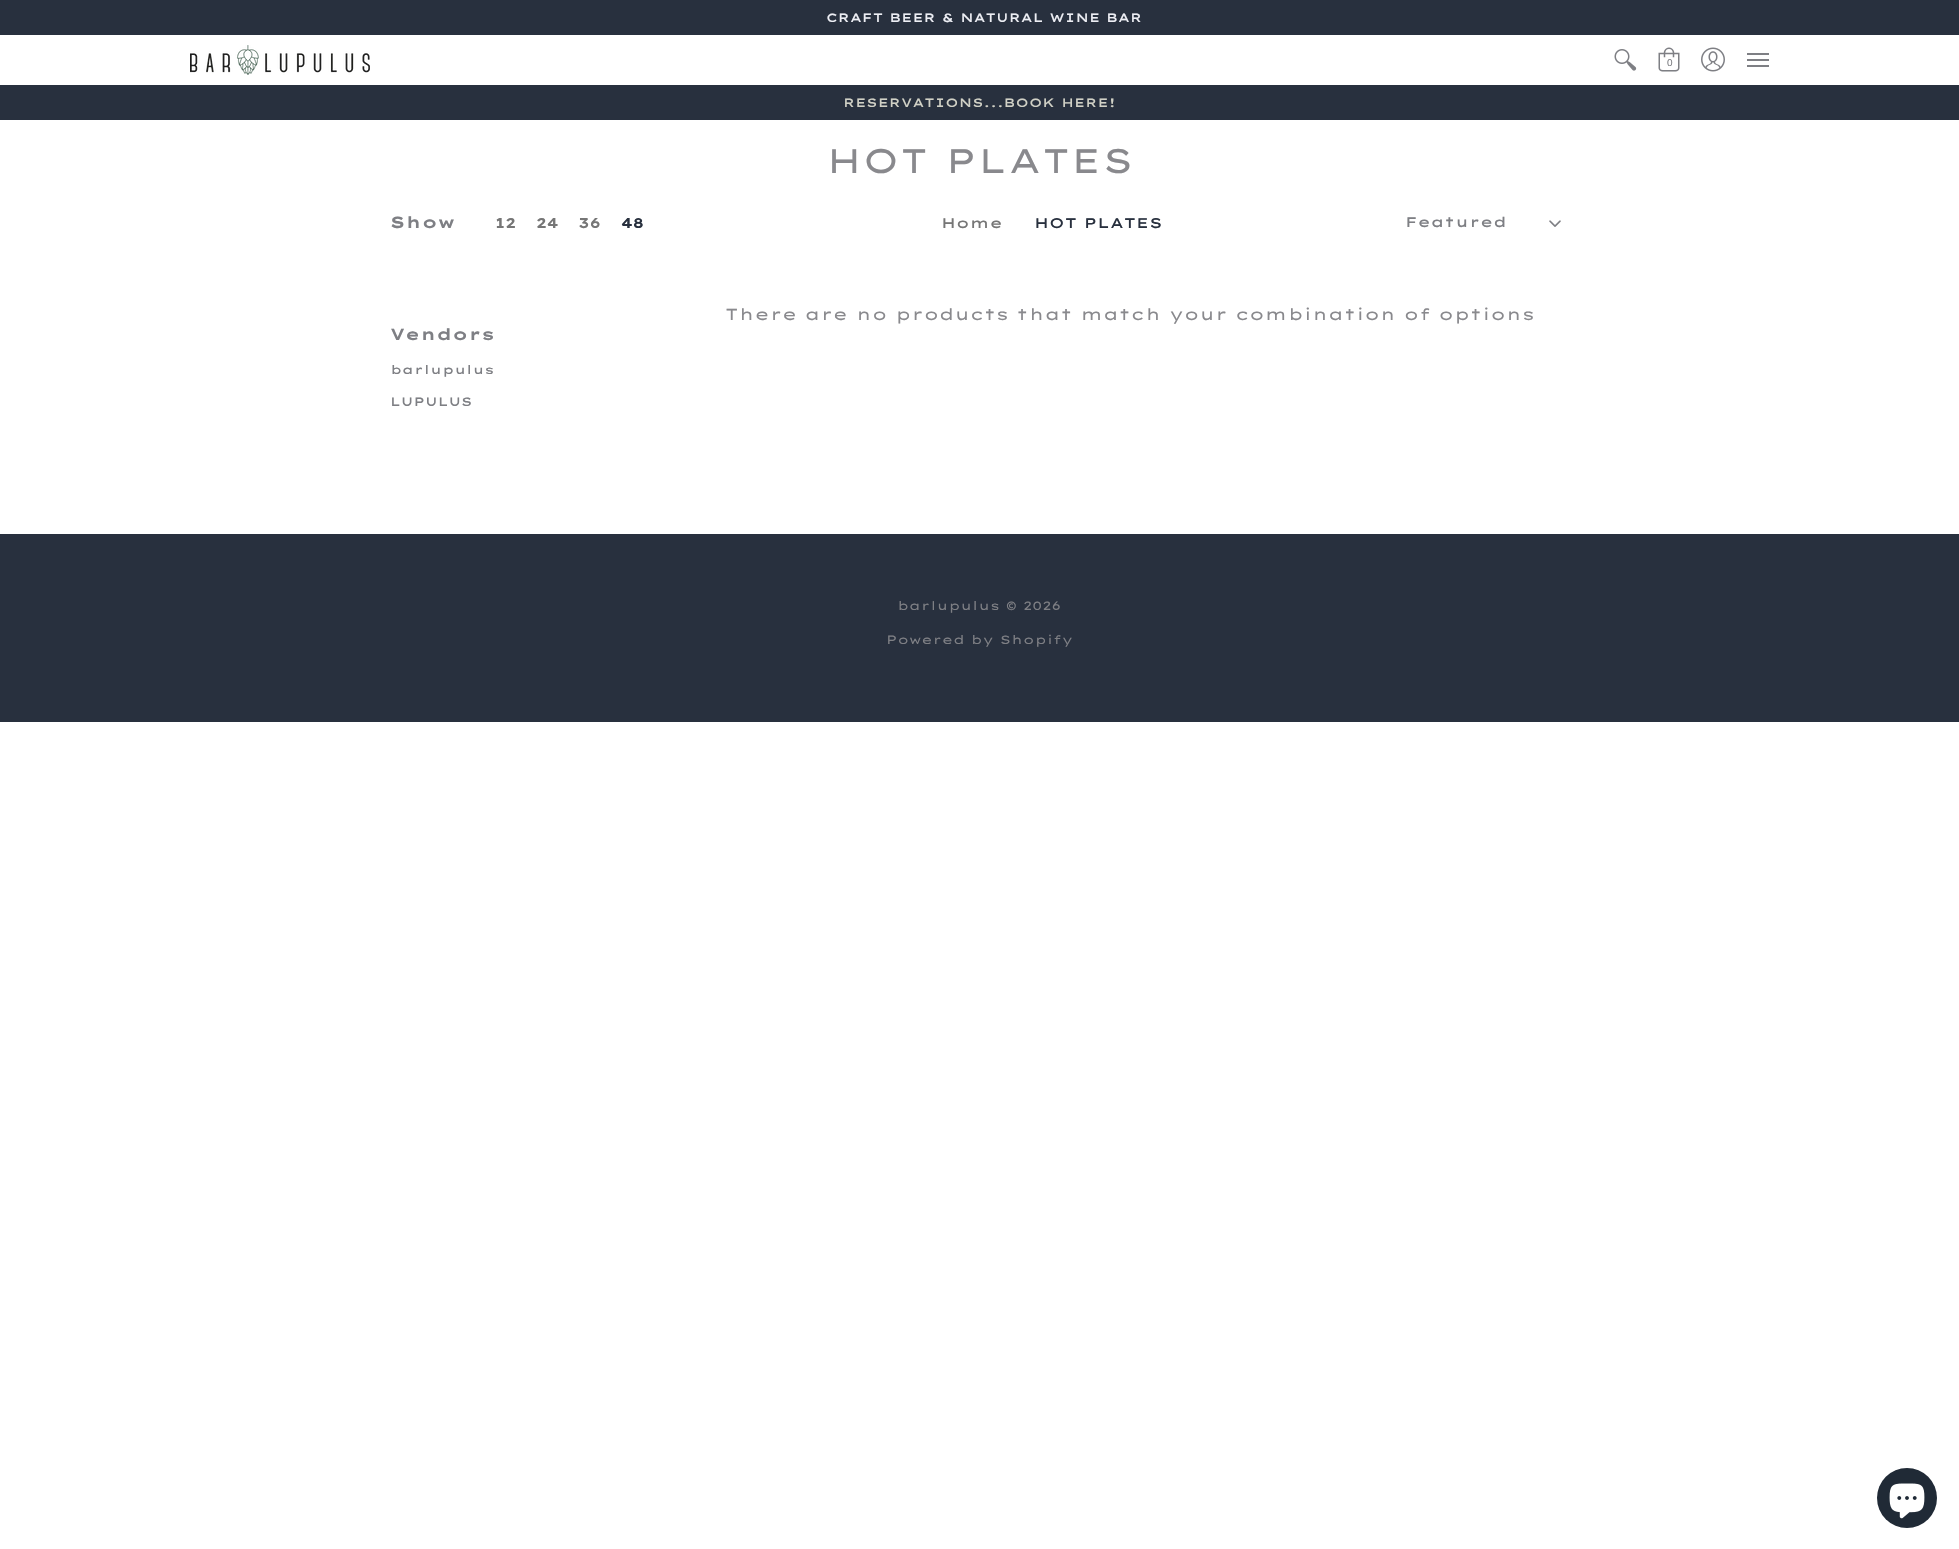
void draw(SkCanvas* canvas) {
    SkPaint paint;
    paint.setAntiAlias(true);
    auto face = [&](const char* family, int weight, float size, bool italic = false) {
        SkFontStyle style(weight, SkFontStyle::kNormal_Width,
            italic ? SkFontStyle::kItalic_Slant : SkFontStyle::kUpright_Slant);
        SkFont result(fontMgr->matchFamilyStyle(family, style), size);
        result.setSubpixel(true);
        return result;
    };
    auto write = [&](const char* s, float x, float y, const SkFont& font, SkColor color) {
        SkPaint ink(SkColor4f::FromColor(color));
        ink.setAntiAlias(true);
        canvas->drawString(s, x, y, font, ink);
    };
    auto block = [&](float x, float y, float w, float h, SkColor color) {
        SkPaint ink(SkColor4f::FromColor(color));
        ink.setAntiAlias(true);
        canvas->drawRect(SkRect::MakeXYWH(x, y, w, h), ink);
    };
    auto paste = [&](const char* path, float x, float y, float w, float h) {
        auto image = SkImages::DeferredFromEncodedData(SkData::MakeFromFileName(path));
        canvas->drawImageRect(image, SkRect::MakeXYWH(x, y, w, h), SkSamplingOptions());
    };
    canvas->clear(SK_ColorWHITE);
    block(0, 0, 1959, 35, SkColorSetRGB(40, 48, 62));
    auto kFont1 = face("Lexend Zetta", 500, 12);
    write("CRAFT BEER & NATURAL WINE BAR", 826, 22, kFont1, SkColorSetRGB(237, 238, 244));
    paste("pic1.png", 190, 45, 180, 30);
    paste("pic2.png", 1614, 49, 23, 22);
    paste("pic3.png", 1658, 47, 22, 25);
    auto kFont2 = face("Liberation Sans", 400, 10);
    write("0", 1667, 66, kFont2, SkColorSetRGB(126, 127, 132));
    paste("pic4.png", 1701, 47, 24, 25);
    block(1747, 53, 22, 2, SkColorSetRGB(126, 127, 132));
    block(1747, 65, 22, 2, SkColorSetRGB(126, 127, 132));
    block(1747, 59, 22, 2, SkColorSetRGB(126, 127, 132));
    block(0, 85, 1959, 35, SkColorSetRGB(40, 48, 62));
    write("RESERVATIONS...BOOK HERE!", 843, 107, kFont1, SkColorSetRGB(209, 209, 198));
    auto kFont3 = face("Lexend Zetta", 400, 34);
    write("HOT PLATES", 826, 173, kFont3, SkColorSetRGB(137, 137, 141));
    auto kFont4 = face("Lexend Zetta", 700, 16);
    write("Show", 390, 228, kFont4, SkColorSetRGB(126, 127, 132));
    auto kFont5 = face("Lexend Zetta", 700, 14);
    write("12", 495, 228, kFont5, SkColorSetRGB(118, 118, 118));
    write("24", 536, 228, kFont5, SkColorSetRGB(118, 118, 118));
    write("36", 578, 228, kFont5, SkColorSetRGB(118, 118, 118));
    write("48", 621, 228, kFont5, SkColorSetRGB(40, 48, 62));
    auto kFont6 = face("Lexend Zetta", 500, 14);
    write("Home", 941, 228, kFont6, SkColorSetRGB(118, 118, 118));
    write("HOT PLATES", 1034, 228, kFont6, SkColorSetRGB(40, 48, 62));
    write("Featured", 1405, 227, kFont6, SkColorSetRGB(126, 127, 132));
    paste("pic5.png", 1549, 220, 12, 7);
    write("Vendors", 390, 340, kFont4, SkColorSetRGB(126, 127, 132));
    write("barlupulus", 390, 374, kFont1, SkColorSetRGB(126, 127, 132));
    write("LUPULUS", 390, 406, kFont1, SkColorSetRGB(126, 127, 132));
    auto kFont7 = face("Lexend Zetta", 400, 16);
    write("There are no products that match your combination of options", 725, 320, kFont7, SkColorSetRGB(137, 137, 141));
    block(0, 534, 1959, 188, SkColorSetRGB(40, 48, 62));
    auto kFont8 = face("Lexend Zetta", 400, 12);
    write("barlupulus © 2026", 897, 610, kFont8, SkColorSetRGB(126, 127, 132));
    write("Powered by Shopify", 886, 644, kFont8, SkColorSetRGB(126, 127, 132));
    paint.setColor(SkColorSetRGB(32, 42, 54));
    canvas->drawCircle(1907, 1498, 30, paint);
    paste("pic6.png", 1889, 1483, 36, 36);
}
